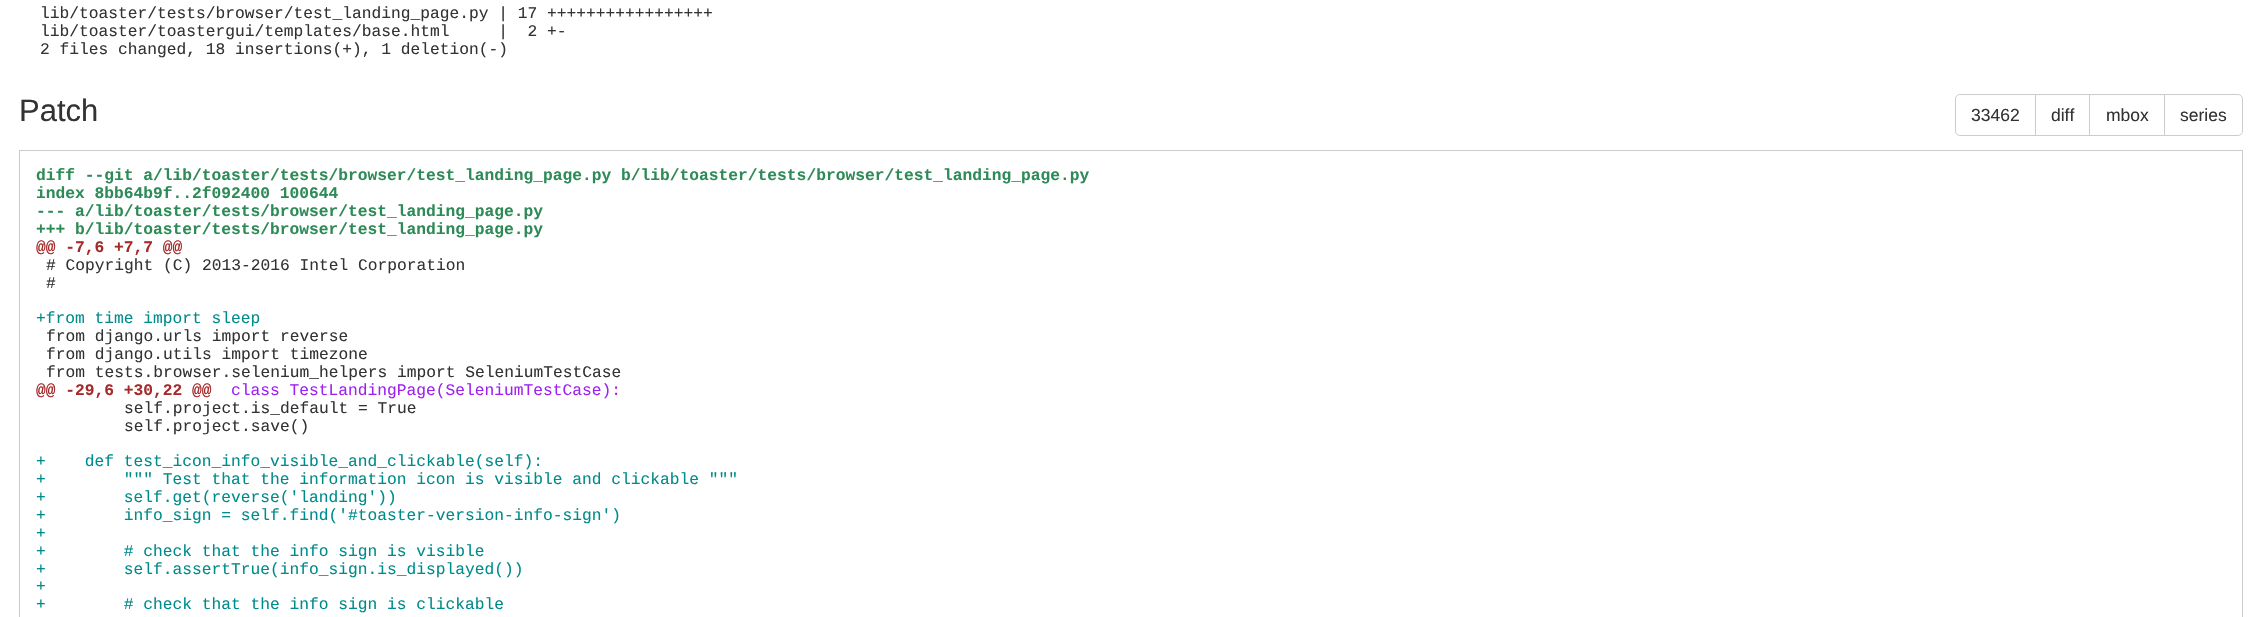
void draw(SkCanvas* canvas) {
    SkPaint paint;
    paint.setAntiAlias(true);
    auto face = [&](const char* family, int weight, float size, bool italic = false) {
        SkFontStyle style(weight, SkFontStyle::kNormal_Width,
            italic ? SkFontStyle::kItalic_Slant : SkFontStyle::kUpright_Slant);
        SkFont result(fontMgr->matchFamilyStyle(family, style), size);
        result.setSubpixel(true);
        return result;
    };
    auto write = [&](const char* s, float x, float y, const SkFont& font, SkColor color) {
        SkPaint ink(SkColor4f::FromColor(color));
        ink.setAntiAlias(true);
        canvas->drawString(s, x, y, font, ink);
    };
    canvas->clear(SK_ColorWHITE);
    auto kFont1 = face("Liberation Mono", 400, 16.25f);
    write("lib/toaster/tests/browser/test_landing_page.py | 17 +++++++++++++++++", 40, 18, kFont1, SkColorSetRGB(51, 51, 51));
    write("lib/toaster/toastergui/templates/base.html     |  2 +-", 40, 36, kFont1, SkColorSetRGB(51, 51, 51));
    write("2 files changed, 18 insertions(+), 1 deletion(-)", 40, 54, kFont1, SkColorSetRGB(51, 51, 51));
    auto kFont2 = face("Liberation Sans", 400, 31);
    write("Patch", 19, 121, kFont2, SkColorSetRGB(51, 51, 51));
    paint.setStyle(SkPaint::kStroke_Style);
    paint.setStrokeWidth(1);
    paint.setColor(SkColorSetRGB(204, 204, 204));
    canvas->drawPath(SkPathBuilder().moveTo(1960, 94.5f).lineTo(2035.5f, 94.5f).lineTo(2035.5f, 135.5f).lineTo(1960, 135.5f).cubicTo(1957.5f, 135.5f, 1955.5f, 133.5f, 1955.5f, 131).lineTo(1955.5f, 99).cubicTo(1955.5f, 96.5f, 1957.5f, 94.5f, 1960, 94.5f).close().detach(), paint);
    auto kFont3 = face("Liberation Sans", 400, 17.5f);
    write("33462", 1971, 121, kFont3, SkColorSetRGB(51, 51, 51));
    canvas->drawRect(SkRect::MakeXYWH(2035.5f, 94.5f, 54, 41), paint);
    write("diff", 2051, 121, kFont3, SkColorSetRGB(51, 51, 51));
    canvas->drawRect(SkRect::MakeXYWH(2089.5f, 94.5f, 75, 41), paint);
    write("mbox", 2106, 121, kFont3, SkColorSetRGB(51, 51, 51));
    paint.setStyle(SkPaint::kFill_Style);
    paint.setColor(SK_ColorWHITE);
    canvas->drawPath(SkPathBuilder().moveTo(2164.5f, 94.5f).lineTo(2238, 94.5f).cubicTo(2240.5f, 94.5f, 2242.5f, 96.5f, 2242.5f, 99).lineTo(2242.5f, 131).cubicTo(2242.5f, 133.5f, 2240.5f, 135.5f, 2238, 135.5f).lineTo(2164.5f, 135.5f).close().detach(), paint);
    paint.setStyle(SkPaint::kStroke_Style);
    paint.setColor(SkColorSetRGB(204, 204, 204));
    canvas->drawPath(SkPathBuilder().moveTo(2164.5f, 94.5f).lineTo(2238, 94.5f).cubicTo(2240.5f, 94.5f, 2242.5f, 96.5f, 2242.5f, 99).lineTo(2242.5f, 131).cubicTo(2242.5f, 133.5f, 2240.5f, 135.5f, 2238, 135.5f).lineTo(2164.5f, 135.5f).close().detach(), paint);
    write("series", 2180, 121, kFont3, SkColorSetRGB(51, 51, 51));
    canvas->drawRect(SkRect::MakeXYWH(19.5f, 150.5f, 2223, 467), paint);
    auto kFont4 = face("Liberation Mono", 700, 16.25f);
    write("diff --git a/lib/toaster/tests/browser/test_landing_page.py b/lib/toaster/tests/browser/test_landing_page.py", 36, 180, kFont4, SkColorSetRGB(46, 139, 87));
    write("index 8bb64b9f..2f092400 100644", 36, 198, kFont4, SkColorSetRGB(46, 139, 87));
    write("--- a/lib/toaster/tests/browser/test_landing_page.py", 36, 216, kFont4, SkColorSetRGB(46, 139, 87));
    write("+++ b/lib/toaster/tests/browser/test_landing_page.py", 36, 234, kFont4, SkColorSetRGB(46, 139, 87));
    write("@@ -7,6 +7,7 @@", 36, 252, kFont4, SkColorSetRGB(165, 42, 42));
    write("# Copyright (C) 2013-2016 Intel Corporation", 46, 270, kFont1, SkColorSetRGB(51, 51, 51));
    write("#", 46, 288, kFont1, SkColorSetRGB(51, 51, 51));
    write("+from time import sleep", 36, 323, kFont1, SkColorSetRGB(0, 139, 139));
    write("from django.urls import reverse", 46, 341, kFont1, SkColorSetRGB(51, 51, 51));
    write("from django.utils import timezone", 46, 359, kFont1, SkColorSetRGB(51, 51, 51));
    write("from tests.browser.selenium_helpers import SeleniumTestCase", 46, 377, kFont1, SkColorSetRGB(51, 51, 51));
    write("@@ -29,6 +30,22 @@", 36, 395, kFont4, SkColorSetRGB(165, 42, 42));
    write("class TestLandingPage(SeleniumTestCase):", 231, 395, kFont1, SkColorSetRGB(160, 32, 240));
    write("self.project.is_default = True", 124, 413, kFont1, SkColorSetRGB(51, 51, 51));
    write("self.project.save()", 124, 431, kFont1, SkColorSetRGB(51, 51, 51));
    write("+    def test_icon_info_visible_and_clickable(self):", 36, 466, kFont1, SkColorSetRGB(0, 139, 139));
    write("+        \"\"\" Test that the information icon is visible and clickable \"\"\"", 36, 484, kFont1, SkColorSetRGB(0, 139, 139));
    write("+        self.get(reverse('landing'))", 36, 502, kFont1, SkColorSetRGB(0, 139, 139));
    write("+        info_sign = self.find('#toaster-version-info-sign')", 36, 520, kFont1, SkColorSetRGB(0, 139, 139));
    write("+", 36, 538, kFont1, SkColorSetRGB(0, 139, 139));
    write("+        # check that the info sign is visible", 36, 556, kFont1, SkColorSetRGB(0, 139, 139));
    write("+        self.assertTrue(info_sign.is_displayed())", 36, 574, kFont1, SkColorSetRGB(0, 139, 139));
    write("+", 36, 591, kFont1, SkColorSetRGB(0, 139, 139));
    write("+        # check that the info sign is clickable", 36, 609, kFont1, SkColorSetRGB(0, 139, 139));
}
